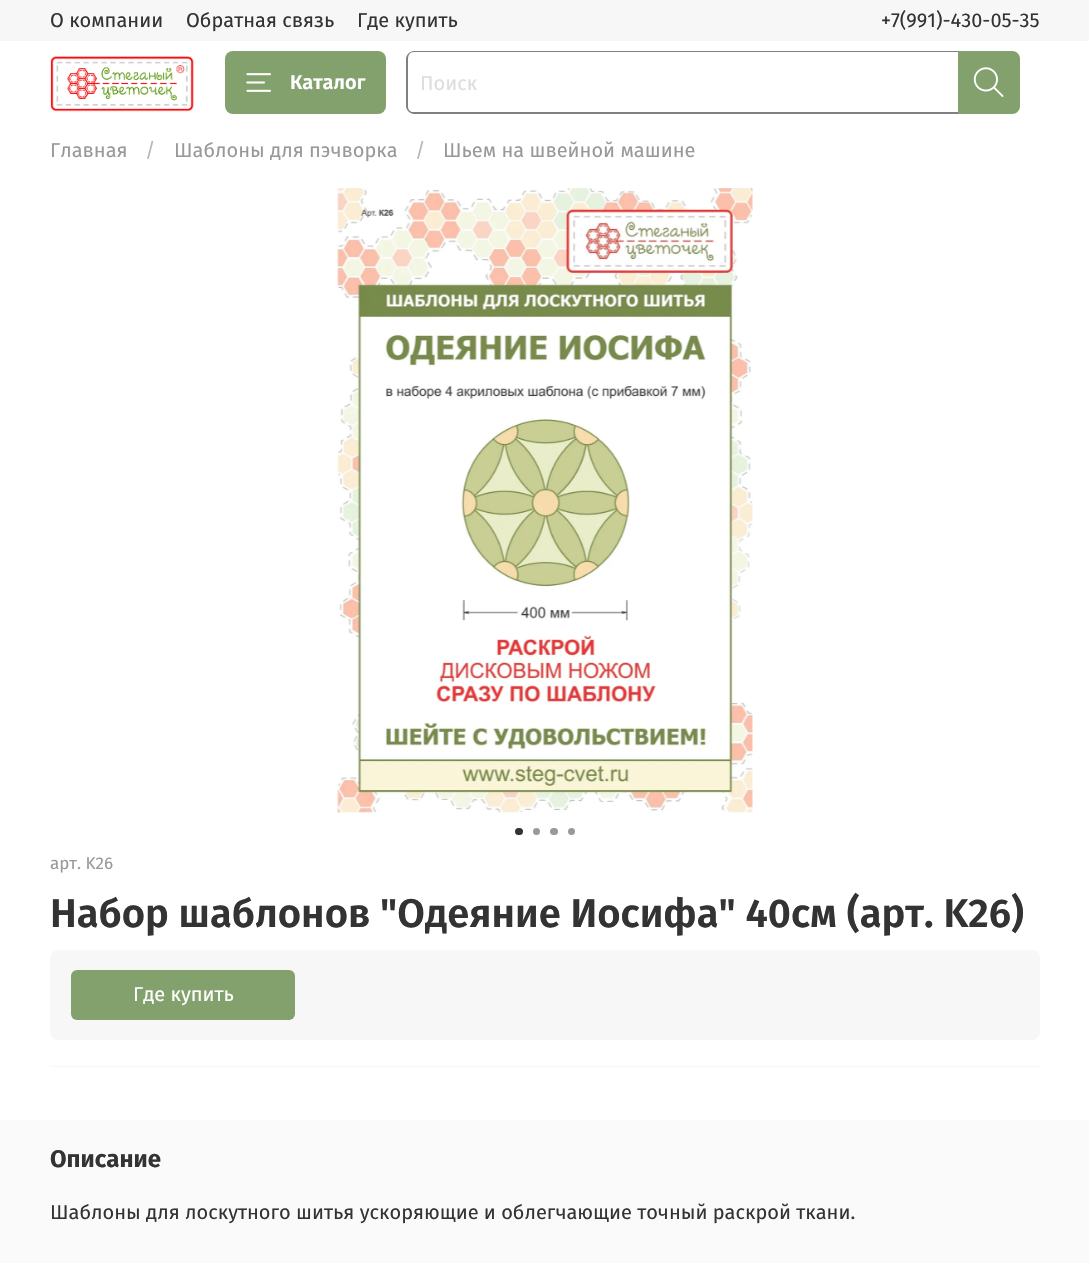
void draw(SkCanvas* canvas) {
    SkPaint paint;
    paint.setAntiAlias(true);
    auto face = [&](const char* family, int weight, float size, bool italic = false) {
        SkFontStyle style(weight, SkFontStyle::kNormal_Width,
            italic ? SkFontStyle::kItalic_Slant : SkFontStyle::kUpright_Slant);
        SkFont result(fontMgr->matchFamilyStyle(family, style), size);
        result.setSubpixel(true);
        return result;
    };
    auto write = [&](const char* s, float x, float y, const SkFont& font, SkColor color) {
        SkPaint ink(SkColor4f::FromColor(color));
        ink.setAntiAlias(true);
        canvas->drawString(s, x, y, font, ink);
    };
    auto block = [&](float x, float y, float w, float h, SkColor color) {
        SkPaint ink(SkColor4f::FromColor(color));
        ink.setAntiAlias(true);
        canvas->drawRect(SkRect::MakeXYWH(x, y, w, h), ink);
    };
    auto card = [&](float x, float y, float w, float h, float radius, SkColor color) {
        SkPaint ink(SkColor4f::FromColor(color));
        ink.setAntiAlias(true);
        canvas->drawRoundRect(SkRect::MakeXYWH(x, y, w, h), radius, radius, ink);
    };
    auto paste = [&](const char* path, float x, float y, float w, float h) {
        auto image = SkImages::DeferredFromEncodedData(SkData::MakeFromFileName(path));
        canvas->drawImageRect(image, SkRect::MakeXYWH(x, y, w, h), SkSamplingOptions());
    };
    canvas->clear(SK_ColorWHITE);
    block(0, 0, 1089, 41, SkColorSetRGB(247, 247, 247));
    auto kFont1 = face("Fira Sans", 400, 20);
    write("О компании", 50, 27, kFont1, SkColorSetRGB(51, 51, 51));
    write("Обратная связь", 186, 27, kFont1, SkColorSetRGB(51, 51, 51));
    write("Где купить", 357, 27, kFont1, SkColorSetRGB(51, 51, 51));
    write("+7(991)-430-05-35", 881, 27, kFont1, SkColorSetRGB(51, 51, 51));
    paste("pic1.png", 50, 56, 144, 56);
    card(225, 51, 161, 63, 8, SkColorSetRGB(131, 161, 108));
    paste("pic2.png", 246, 73, 25, 19);
    auto kFont2 = face("Fira Sans", 600, 20);
    write("Каталог", 290, 89, kFont2, SK_ColorWHITE);
    paint.setColor(SkColorSetRGB(128, 128, 128));
    canvas->drawPath(SkPathBuilder(SkPathFillType::kEvenOdd).moveTo(414, 51).lineTo(958, 51).lineTo(958, 114).lineTo(414, 114).cubicTo(410, 114, 406, 110, 406, 106).lineTo(406, 59).cubicTo(406, 55, 410, 51, 414, 51).close().moveTo(414, 52).lineTo(958, 52).lineTo(958, 112).lineTo(414, 112).cubicTo(410, 112, 408, 110, 408, 106).lineTo(408, 59).cubicTo(408, 55, 410, 52, 414, 52).close().detach(), paint);
    write("Поиск", 420, 90, kFont1, SkColorSetRGB(221, 221, 221));
    paint.setColor(SkColorSetRGB(131, 161, 108));
    canvas->drawPath(SkPathBuilder().moveTo(958, 51).lineTo(1012, 51).cubicTo(1016.5f, 51, 1020, 54.5f, 1020, 59).lineTo(1020, 106).cubicTo(1020, 110.5f, 1016.5f, 114, 1012, 114).lineTo(958, 114).close().detach(), paint);
    paste("pic3.png", 973, 67, 31, 30);
    write("Главная", 50, 157, kFont1, SkColorSetRGB(153, 153, 153));
    write("/", 145, 157, kFont1, SkColorSetRGB(184, 184, 184));
    write("Шаблоны для пэчворка", 174, 157, kFont1, SkColorSetRGB(153, 153, 153));
    write("/", 415, 157, kFont1, SkColorSetRGB(184, 184, 184));
    write("Шьем на швейной машине", 443, 157, kFont1, SkColorSetRGB(153, 153, 153));
    paste("pic4.png", 337, 188, 416, 625);
    card(515, 828, 8, 7, 3.5f, SkColorSetRGB(51, 51, 51));
    paint.setColor(SkColorSetRGB(153, 153, 153));
    canvas->drawCircle(536.5f, 831.5f, 3.5f, paint);
    card(550, 828, 8, 7, 3.5f, SkColorSetRGB(153, 153, 153));
    canvas->drawCircle(571.5f, 831.5f, 3.5f, paint);
    auto kFont3 = face("Fira Sans", 400, 17);
    write("арт. K26", 50, 869, kFont3, SkColorSetRGB(153, 153, 153));
    auto kFont4 = face("Fira Sans", 600, 40);
    write("Набор шаблонов \"Одеяние Иосифа\" 40см (арт. K26)", 50, 927, kFont4, SkColorSetRGB(51, 51, 51));
    card(50, 950, 990, 90, 8, SkColorSetRGB(247, 247, 247));
    card(71, 970, 224, 50, 6, SkColorSetRGB(131, 161, 108));
    write("Где купить", 133, 1001, kFont1, SK_ColorWHITE);
    block(50, 1066, 990, 1, SkColorSetRGB(247, 247, 247));
    block(0, 1120, 1089, 143, SkColorSetRGB(250, 250, 250));
    auto kFont5 = face("Fira Sans", 700, 24);
    write("Описание", 50, 1167, kFont5, SkColorSetRGB(51, 51, 51));
    write("Шаблоны для лоскутного шитья ускоряющие и облегчающие точный раскрой ткани.", 50, 1219, kFont1, SkColorSetRGB(51, 51, 51));
}
